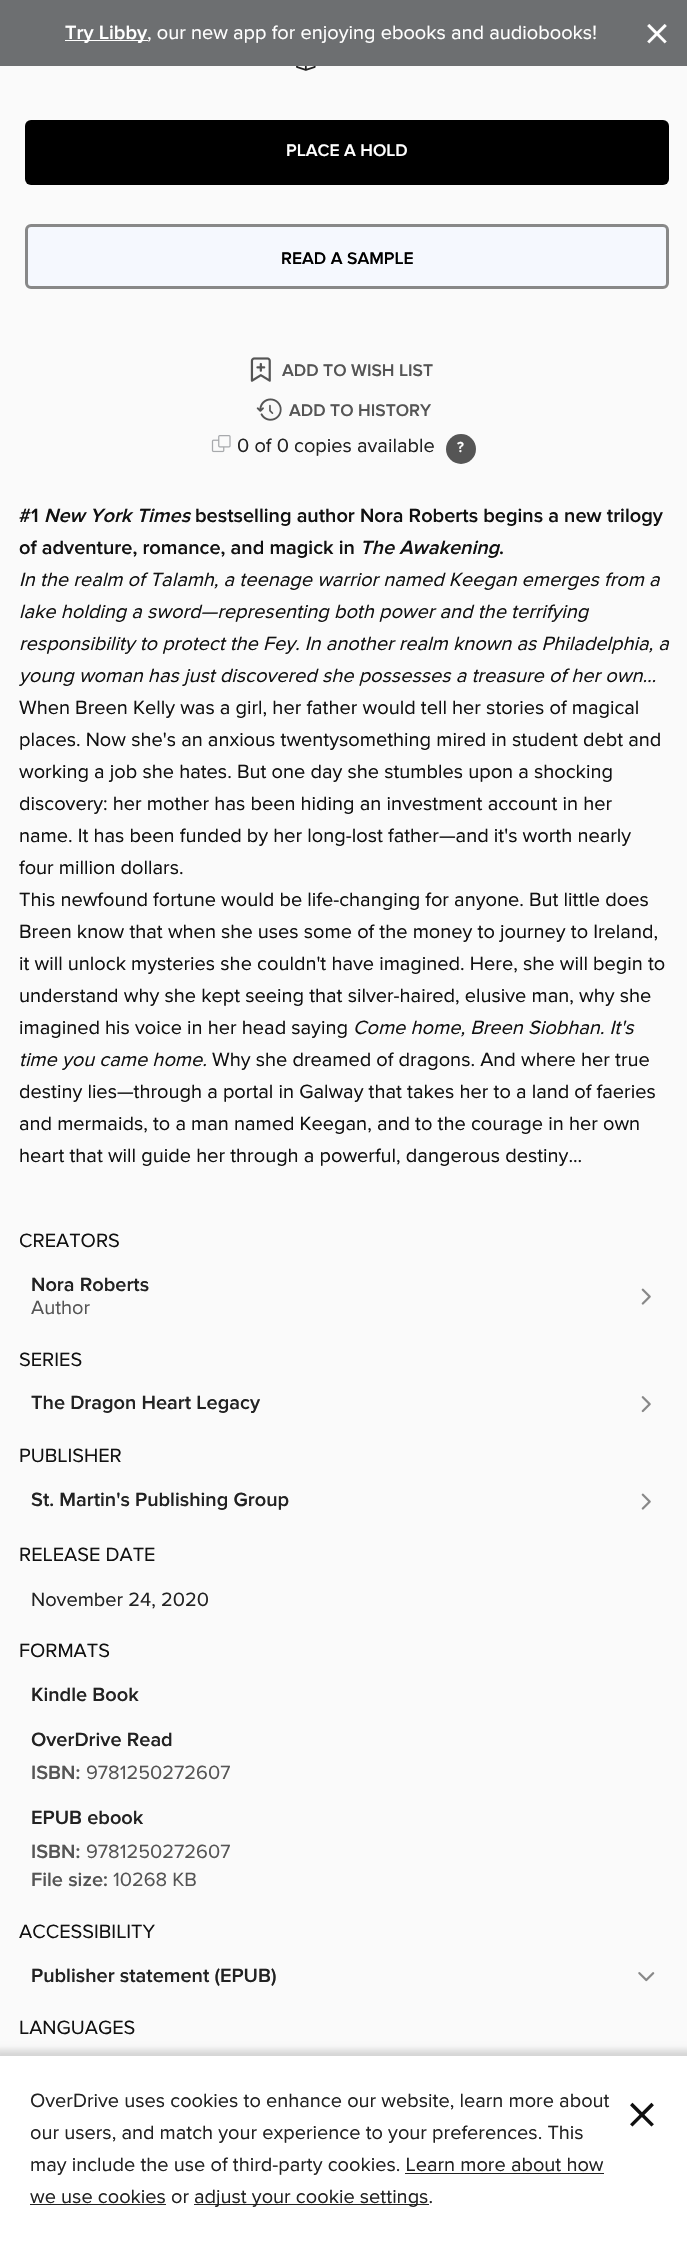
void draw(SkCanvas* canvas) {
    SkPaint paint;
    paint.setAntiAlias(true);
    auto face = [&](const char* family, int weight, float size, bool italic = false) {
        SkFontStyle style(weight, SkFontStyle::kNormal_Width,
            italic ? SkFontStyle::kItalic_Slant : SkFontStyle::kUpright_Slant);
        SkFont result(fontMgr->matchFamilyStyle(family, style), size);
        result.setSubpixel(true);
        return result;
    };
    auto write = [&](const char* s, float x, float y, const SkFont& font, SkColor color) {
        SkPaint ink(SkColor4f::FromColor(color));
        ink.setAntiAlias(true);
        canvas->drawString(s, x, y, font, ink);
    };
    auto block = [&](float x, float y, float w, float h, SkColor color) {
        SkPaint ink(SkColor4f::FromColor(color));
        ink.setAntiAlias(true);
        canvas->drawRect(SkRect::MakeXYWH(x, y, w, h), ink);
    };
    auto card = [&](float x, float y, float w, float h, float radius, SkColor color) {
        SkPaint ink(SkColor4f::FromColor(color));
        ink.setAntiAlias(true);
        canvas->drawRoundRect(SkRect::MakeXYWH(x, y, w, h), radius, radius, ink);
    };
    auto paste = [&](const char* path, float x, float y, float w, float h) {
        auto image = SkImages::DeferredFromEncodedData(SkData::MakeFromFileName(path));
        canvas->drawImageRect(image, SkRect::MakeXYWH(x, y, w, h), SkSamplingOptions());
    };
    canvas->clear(SkColorSetRGB(250, 250, 250));
    block(0, 0, 687, 66, SkColorSetRGB(109, 111, 113));
    block(65, 40, 83, 1, SK_ColorWHITE);
    auto kFont1 = face("Proxima Nova", 600, 20);
    write("Try Libby", 65, 39, kFont1, SK_ColorWHITE);
    auto kFont2 = face("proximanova", 400, 20);
    write(", our new app for enjoying ebooks and audiobooks!", 147, 39, kFont2, SK_ColorWHITE);
    auto kFont3 = face("proximanova", 400, 52);
    write("×", 644, 51, kFont3, SK_ColorWHITE);
    paste("pic1.png", 296, 66, 20, 5);
    card(25, 120, 644, 65, 6, SK_ColorBLACK);
    auto kFont4 = face("Proxima Nova", 600, 17.5f);
    write("PLACE A HOLD", 286, 156, kFont4, SK_ColorWHITE);
    paint.setColor(SkColorSetRGB(245, 248, 254));
    canvas->drawRoundRect(SkRect::MakeXYWH(26.5f, 225.5f, 641, 62), 4.5f, 4.5f, paint);
    paint.setStyle(SkPaint::kStroke_Style);
    paint.setStrokeWidth(3);
    paint.setColor(SkColorSetRGB(136, 136, 136));
    canvas->drawRoundRect(SkRect::MakeXYWH(26.5f, 225.5f, 641, 62), 4.5f, 4.5f, paint);
    write("READ A SAMPLE", 281, 264, kFont4, SK_ColorBLACK);
    paste("pic2.png", 250, 357, 21, 25);
    write("ADD TO WISH LIST", 282, 376, kFont4, SkColorSetRGB(85, 85, 85));
    paste("pic3.png", 256, 398, 26, 23);
    write("ADD TO HISTORY", 289, 416, kFont4, SkColorSetRGB(85, 85, 85));
    paste("pic4.png", 211, 435, 20, 18);
    write("0 of 0 copies available", 237, 452, kFont2, SkColorSetRGB(34, 34, 34));
    paint.setStyle(SkPaint::kFill_Style);
    paint.setColor(SkColorSetRGB(85, 85, 85));
    canvas->drawCircle(461, 449, 15, paint);
    auto kFont5 = face("Proxima Nova", 600, 15);
    write("?", 457, 452, kFont5, SK_ColorWHITE);
    write("#1", 19, 522, kFont1, SkColorSetRGB(17, 17, 17));
    auto kFont6 = face("Proxima Nova", 600, 20, true);
    write("New York Times", 44, 522, kFont6, SkColorSetRGB(17, 17, 17));
    write("bestselling author Nora Roberts begins a new trilogy", 195, 522, kFont1, SkColorSetRGB(17, 17, 17));
    write("of adventure, romance, and magick in", 19, 554, kFont1, SkColorSetRGB(17, 17, 17));
    write("The Awakening", 360, 554, kFont6, SkColorSetRGB(17, 17, 17));
    write(".", 499, 554, kFont1, SkColorSetRGB(17, 17, 17));
    auto kFont7 = face("proximanova", 400, 20, true);
    write("In the realm of Talamh, a teenage warrior named Keegan emerges from a", 19, 586, kFont7, SkColorSetRGB(17, 17, 17));
    write("lake holding a sword—representing both power and the terrifying", 19, 618, kFont7, SkColorSetRGB(17, 17, 17));
    write("responsibility to protect the Fey. In another realm known as Philadelphia, a", 19, 650, kFont7, SkColorSetRGB(17, 17, 17));
    write("young woman has just discovered she possesses a treasure of her own...", 19, 682, kFont7, SkColorSetRGB(17, 17, 17));
    write("When Breen Kelly was a girl, her father would tell her stories of magical", 19, 714, kFont2, SkColorSetRGB(17, 17, 17));
    write("places. Now she's an anxious twentysomething mired in student debt and", 19, 746, kFont2, SkColorSetRGB(17, 17, 17));
    write("working a job she hates. But one day she stumbles upon a shocking", 19, 778, kFont2, SkColorSetRGB(17, 17, 17));
    write("discovery: her mother has been hiding an investment account in her", 19, 810, kFont2, SkColorSetRGB(17, 17, 17));
    write("name. It has been funded by her long-lost father—and it's worth nearly", 19, 842, kFont2, SkColorSetRGB(17, 17, 17));
    write("four million dollars.", 19, 874, kFont2, SkColorSetRGB(17, 17, 17));
    write("This newfound fortune would be life-changing for anyone. But little does", 19, 906, kFont2, SkColorSetRGB(17, 17, 17));
    write("Breen know that when she uses some of the money to journey to Ireland,", 19, 938, kFont2, SkColorSetRGB(17, 17, 17));
    write("it will unlock mysteries she couldn't have imagined. Here, she will begin to", 19, 970, kFont2, SkColorSetRGB(17, 17, 17));
    write("understand why she kept seeing that silver-haired, elusive man, why she", 19, 1002, kFont2, SkColorSetRGB(17, 17, 17));
    write("imagined his voice in her head saying", 19, 1034, kFont2, SkColorSetRGB(17, 17, 17));
    write("Come home, Breen Siobhan. It's", 353, 1034, kFont7, SkColorSetRGB(17, 17, 17));
    write("time you came home.", 19, 1066, kFont7, SkColorSetRGB(17, 17, 17));
    write("Why she dreamed of dragons. And where her true", 212, 1066, kFont2, SkColorSetRGB(17, 17, 17));
    write("destiny lies—through a portal in Galway that takes her to a land of faeries", 19, 1098, kFont2, SkColorSetRGB(17, 17, 17));
    write("and mermaids, to a man named Keegan, and to the courage in her own", 19, 1130, kFont2, SkColorSetRGB(17, 17, 17));
    write("heart that will guide her through a powerful, dangerous destiny...", 19, 1162, kFont2, SkColorSetRGB(17, 17, 17));
    write("CREATORS", 19, 1247, kFont2, SkColorSetRGB(17, 17, 17));
    write("Nora Roberts", 31, 1291, kFont1, SkColorSetRGB(34, 34, 34));
    write("Author", 31, 1314, kFont2, SkColorSetRGB(85, 85, 85));
    paste("pic5.png", 641, 1288, 10, 17);
    write("SERIES", 19, 1366, kFont2, SkColorSetRGB(17, 17, 17));
    write("The Dragon Heart Legacy", 31, 1409, kFont1, SkColorSetRGB(34, 34, 34));
    paste("pic6.png", 641, 1396, 10, 17);
    write("PUBLISHER", 19, 1462, kFont2, SkColorSetRGB(17, 17, 17));
    write("St. Martin's Publishing Group", 31, 1506, kFont1, SkColorSetRGB(34, 34, 34));
    paste("pic5.png", 641, 1493, 10, 17);
    write("RELEASE DATE", 19, 1561, kFont2, SkColorSetRGB(17, 17, 17));
    write("November 24, 2020", 31, 1606, kFont2, SkColorSetRGB(34, 34, 34));
    write("FORMATS", 19, 1657, kFont2, SkColorSetRGB(17, 17, 17));
    write("Kindle Book", 31, 1701, kFont1, SkColorSetRGB(34, 34, 34));
    write("OverDrive Read", 31, 1746, kFont1, SkColorSetRGB(34, 34, 34));
    write("ISBN:", 31, 1779, kFont1, SkColorSetRGB(85, 85, 85));
    write("9781250272607", 86, 1779, kFont2, SkColorSetRGB(85, 85, 85));
    write("EPUB ebook", 31, 1824, kFont1, SkColorSetRGB(34, 34, 34));
    write("ISBN:", 31, 1858, kFont1, SkColorSetRGB(85, 85, 85));
    write("9781250272607", 86, 1858, kFont2, SkColorSetRGB(85, 85, 85));
    write("File size:", 31, 1886, kFont1, SkColorSetRGB(85, 85, 85));
    write("10268 KB", 113, 1886, kFont2, SkColorSetRGB(85, 85, 85));
    write("ACCESSIBILITY", 19, 1938, kFont2, SkColorSetRGB(17, 17, 17));
    write("Publisher statement (EPUB)", 31, 1982, kFont1, SkColorSetRGB(34, 34, 34));
    paste("pic7.png", 638, 1972, 17, 10);
    write("LANGUAGES", 19, 2034, kFont2, SkColorSetRGB(17, 17, 17));
    paint.setColor(SkColorSetARGB(38, 0, 0, 0));
    paint.setMaskFilter(SkMaskFilter::MakeBlur(kNormal_SkBlurStyle, 3));
    canvas->drawRect(SkRect::MakeXYWH(-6, 2050, 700, 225), paint);
    paint.setMaskFilter(nullptr);
    block(0, 2056, 687, 212, SK_ColorWHITE);
    write("OverDrive uses cookies to enhance our website, learn more about", 30, 2107, kFont2, SkColorSetRGB(34, 34, 34));
    write("our users, and match your experience to your preferences. This", 30, 2139, kFont2, SkColorSetRGB(34, 34, 34));
    write("may include the use of third-party cookies. Learn more about how", 30, 2171, kFont2, SkColorSetRGB(34, 34, 34));
    block(405, 2173, 199, 1, SkColorSetRGB(34, 34, 34));
    write("we use cookies or", 30, 2203, kFont2, SkColorSetRGB(34, 34, 34));
    block(30, 2204, 136, 1, SkColorSetRGB(34, 34, 34));
    block(194, 2204, 235, 1, SkColorSetRGB(34, 34, 34));
    write("adjust your cookie settings.", 194, 2203, kFont2, SkColorSetRGB(34, 34, 34));
    auto kFont8 = face("proximanova", 400, 64);
    write("×", 626, 2136, kFont8, SkColorSetRGB(17, 17, 17));
}
